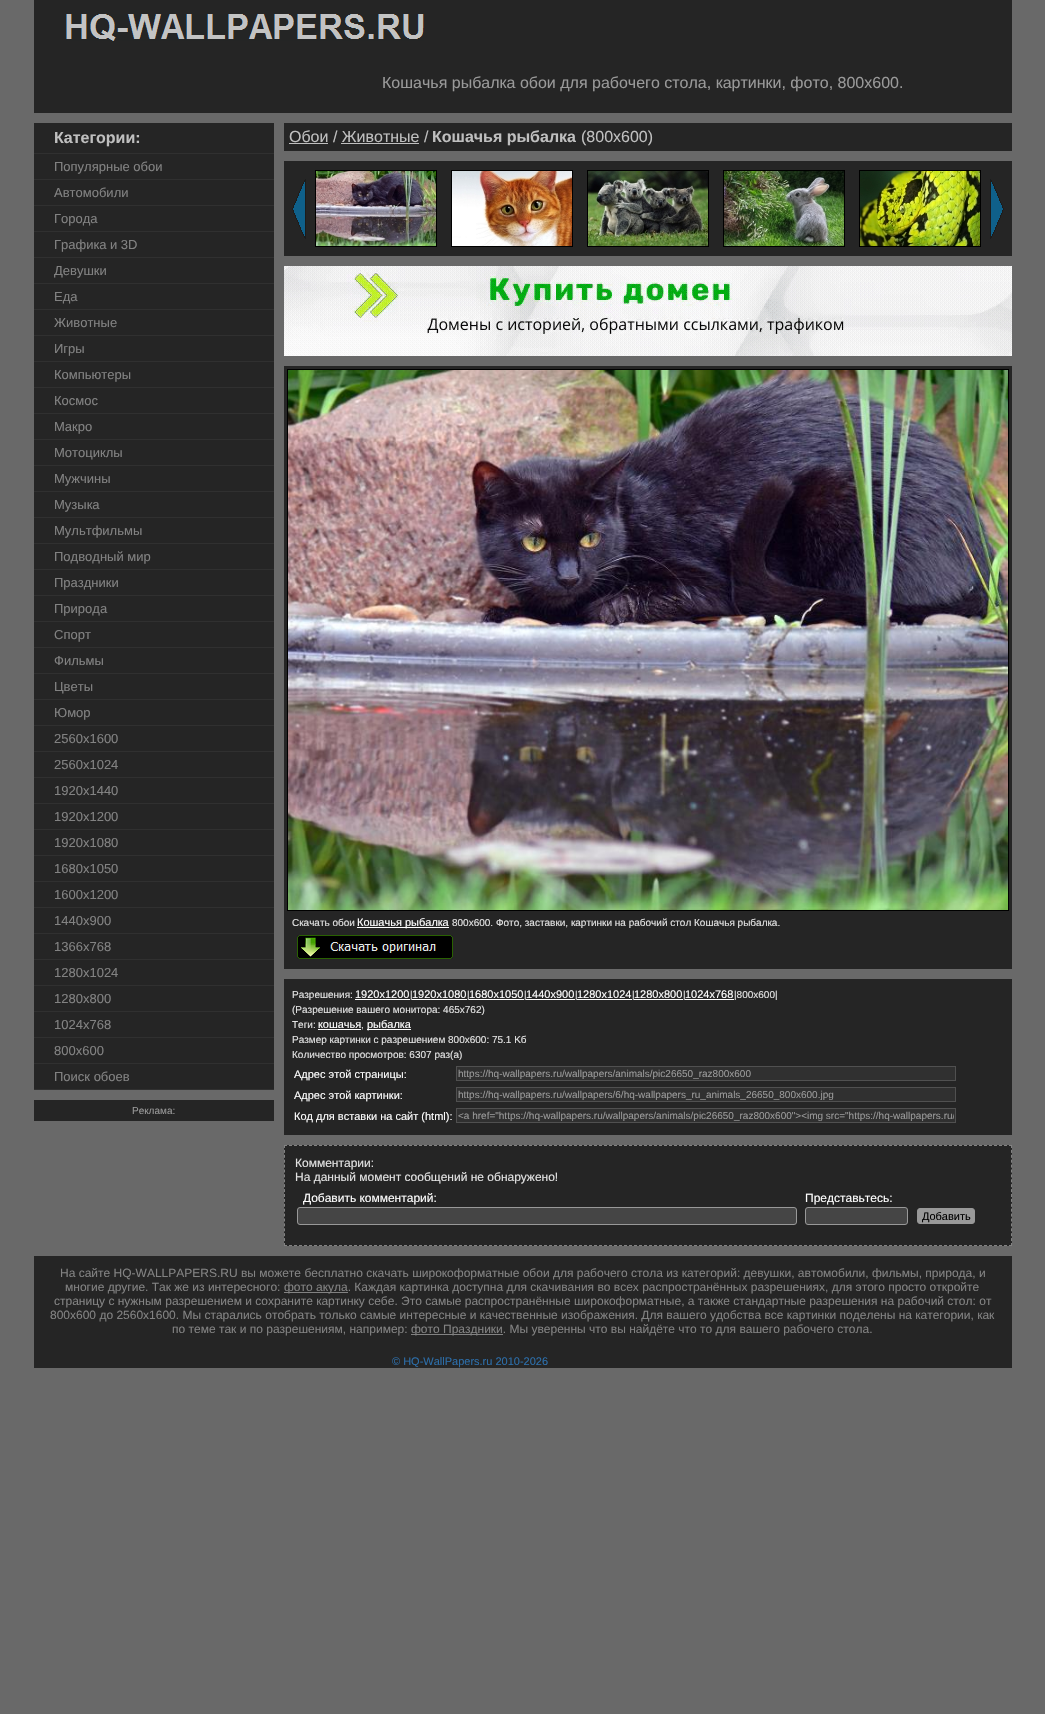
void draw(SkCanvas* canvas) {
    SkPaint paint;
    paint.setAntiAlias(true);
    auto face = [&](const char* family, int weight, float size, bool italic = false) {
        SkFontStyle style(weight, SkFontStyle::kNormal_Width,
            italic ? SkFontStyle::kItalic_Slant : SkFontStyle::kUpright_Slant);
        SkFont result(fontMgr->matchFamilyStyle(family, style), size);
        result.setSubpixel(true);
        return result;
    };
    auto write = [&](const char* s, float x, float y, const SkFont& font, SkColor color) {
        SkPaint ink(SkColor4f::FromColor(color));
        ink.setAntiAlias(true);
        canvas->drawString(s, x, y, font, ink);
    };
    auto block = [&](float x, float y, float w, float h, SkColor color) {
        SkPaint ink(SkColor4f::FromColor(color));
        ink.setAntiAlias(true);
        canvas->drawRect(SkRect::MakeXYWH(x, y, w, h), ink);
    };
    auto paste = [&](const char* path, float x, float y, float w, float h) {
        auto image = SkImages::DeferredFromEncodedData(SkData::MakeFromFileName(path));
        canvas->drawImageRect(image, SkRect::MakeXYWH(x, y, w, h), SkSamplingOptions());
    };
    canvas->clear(SkColorSetRGB(105, 105, 105));
    block(34, 0, 978, 53, SkColorSetRGB(37, 37, 37));
    paste("pic1.png", 66, 14, 358, 27);
    block(34, 53, 978, 60, SkColorSetRGB(37, 37, 37));
    auto kFont1 = face("Liberation Sans", 400, 16);
    write("Кошачья рыбалка обои для рабочего стола, картинки, фото, 800x600.", 382, 88, kFont1, SkColorSetRGB(153, 153, 153));
    block(34, 123, 240, 30, SkColorSetRGB(37, 37, 37));
    block(34, 153, 240, 1, SkColorSetRGB(48, 48, 48));
    auto kFont2 = face("Liberation Sans", 700, 16);
    write("Категории:", 54, 143, kFont2, SkColorSetRGB(191, 191, 191));
    block(34, 154, 240, 25, SkColorSetRGB(37, 37, 37));
    block(34, 179, 240, 1, SkColorSetRGB(48, 48, 48));
    auto kFont3 = face("Liberation Sans", 400, 13);
    write("Популярные обои", 54, 171, kFont3, SkColorSetRGB(130, 130, 130));
    block(34, 180, 240, 25, SkColorSetRGB(37, 37, 37));
    block(34, 205, 240, 1, SkColorSetRGB(48, 48, 48));
    write("Автомобили", 54, 197, kFont3, SkColorSetRGB(130, 130, 130));
    block(34, 206, 240, 25, SkColorSetRGB(37, 37, 37));
    block(34, 231, 240, 1, SkColorSetRGB(48, 48, 48));
    write("Города", 54, 223, kFont3, SkColorSetRGB(130, 130, 130));
    block(34, 232, 240, 25, SkColorSetRGB(37, 37, 37));
    block(34, 257, 240, 1, SkColorSetRGB(48, 48, 48));
    write("Графика и 3D", 54, 249, kFont3, SkColorSetRGB(130, 130, 130));
    block(34, 258, 240, 25, SkColorSetRGB(37, 37, 37));
    block(34, 283, 240, 1, SkColorSetRGB(48, 48, 48));
    write("Девушки", 54, 275, kFont3, SkColorSetRGB(130, 130, 130));
    block(34, 284, 240, 25, SkColorSetRGB(37, 37, 37));
    block(34, 309, 240, 1, SkColorSetRGB(48, 48, 48));
    write("Еда", 54, 301, kFont3, SkColorSetRGB(130, 130, 130));
    block(34, 310, 240, 25, SkColorSetRGB(37, 37, 37));
    block(34, 335, 240, 1, SkColorSetRGB(48, 48, 48));
    write("Животные", 54, 327, kFont3, SkColorSetRGB(130, 130, 130));
    block(34, 336, 240, 25, SkColorSetRGB(37, 37, 37));
    block(34, 361, 240, 1, SkColorSetRGB(48, 48, 48));
    write("Игры", 54, 353, kFont3, SkColorSetRGB(130, 130, 130));
    block(34, 362, 240, 25, SkColorSetRGB(37, 37, 37));
    block(34, 387, 240, 1, SkColorSetRGB(48, 48, 48));
    write("Компьютеры", 54, 379, kFont3, SkColorSetRGB(130, 130, 130));
    block(34, 388, 240, 25, SkColorSetRGB(37, 37, 37));
    block(34, 413, 240, 1, SkColorSetRGB(48, 48, 48));
    write("Космос", 54, 405, kFont3, SkColorSetRGB(130, 130, 130));
    block(34, 414, 240, 25, SkColorSetRGB(37, 37, 37));
    block(34, 439, 240, 1, SkColorSetRGB(48, 48, 48));
    write("Макро", 54, 431, kFont3, SkColorSetRGB(130, 130, 130));
    block(34, 440, 240, 25, SkColorSetRGB(37, 37, 37));
    block(34, 465, 240, 1, SkColorSetRGB(48, 48, 48));
    write("Мотоциклы", 54, 457, kFont3, SkColorSetRGB(130, 130, 130));
    block(34, 466, 240, 25, SkColorSetRGB(37, 37, 37));
    block(34, 491, 240, 1, SkColorSetRGB(48, 48, 48));
    write("Мужчины", 54, 483, kFont3, SkColorSetRGB(130, 130, 130));
    block(34, 492, 240, 25, SkColorSetRGB(37, 37, 37));
    block(34, 517, 240, 1, SkColorSetRGB(48, 48, 48));
    write("Музыка", 54, 509, kFont3, SkColorSetRGB(130, 130, 130));
    block(34, 518, 240, 25, SkColorSetRGB(37, 37, 37));
    block(34, 543, 240, 1, SkColorSetRGB(48, 48, 48));
    write("Мультфильмы", 54, 535, kFont3, SkColorSetRGB(130, 130, 130));
    block(34, 544, 240, 25, SkColorSetRGB(37, 37, 37));
    block(34, 569, 240, 1, SkColorSetRGB(48, 48, 48));
    write("Подводный мир", 54, 561, kFont3, SkColorSetRGB(130, 130, 130));
    block(34, 570, 240, 25, SkColorSetRGB(37, 37, 37));
    block(34, 595, 240, 1, SkColorSetRGB(48, 48, 48));
    write("Праздники", 54, 587, kFont3, SkColorSetRGB(130, 130, 130));
    block(34, 596, 240, 25, SkColorSetRGB(37, 37, 37));
    block(34, 621, 240, 1, SkColorSetRGB(48, 48, 48));
    write("Природа", 54, 613, kFont3, SkColorSetRGB(130, 130, 130));
    block(34, 622, 240, 25, SkColorSetRGB(37, 37, 37));
    block(34, 647, 240, 1, SkColorSetRGB(48, 48, 48));
    write("Спорт", 54, 639, kFont3, SkColorSetRGB(130, 130, 130));
    block(34, 648, 240, 25, SkColorSetRGB(37, 37, 37));
    block(34, 673, 240, 1, SkColorSetRGB(48, 48, 48));
    write("Фильмы", 54, 665, kFont3, SkColorSetRGB(130, 130, 130));
    block(34, 674, 240, 25, SkColorSetRGB(37, 37, 37));
    block(34, 699, 240, 1, SkColorSetRGB(48, 48, 48));
    write("Цветы", 54, 691, kFont3, SkColorSetRGB(130, 130, 130));
    block(34, 700, 240, 25, SkColorSetRGB(37, 37, 37));
    block(34, 725, 240, 1, SkColorSetRGB(48, 48, 48));
    write("Юмор", 54, 717, kFont3, SkColorSetRGB(130, 130, 130));
    block(34, 726, 240, 25, SkColorSetRGB(37, 37, 37));
    block(34, 751, 240, 1, SkColorSetRGB(48, 48, 48));
    write("2560x1600", 54, 743, kFont3, SkColorSetRGB(130, 130, 130));
    block(34, 752, 240, 25, SkColorSetRGB(37, 37, 37));
    block(34, 777, 240, 1, SkColorSetRGB(48, 48, 48));
    write("2560x1024", 54, 769, kFont3, SkColorSetRGB(130, 130, 130));
    block(34, 778, 240, 25, SkColorSetRGB(37, 37, 37));
    block(34, 803, 240, 1, SkColorSetRGB(48, 48, 48));
    write("1920x1440", 54, 795, kFont3, SkColorSetRGB(130, 130, 130));
    block(34, 804, 240, 25, SkColorSetRGB(37, 37, 37));
    block(34, 829, 240, 1, SkColorSetRGB(48, 48, 48));
    write("1920x1200", 54, 821, kFont3, SkColorSetRGB(130, 130, 130));
    block(34, 830, 240, 25, SkColorSetRGB(37, 37, 37));
    block(34, 855, 240, 1, SkColorSetRGB(48, 48, 48));
    write("1920x1080", 54, 847, kFont3, SkColorSetRGB(130, 130, 130));
    block(34, 856, 240, 25, SkColorSetRGB(37, 37, 37));
    block(34, 881, 240, 1, SkColorSetRGB(48, 48, 48));
    write("1680x1050", 54, 873, kFont3, SkColorSetRGB(130, 130, 130));
    block(34, 882, 240, 25, SkColorSetRGB(37, 37, 37));
    block(34, 907, 240, 1, SkColorSetRGB(48, 48, 48));
    write("1600x1200", 54, 899, kFont3, SkColorSetRGB(130, 130, 130));
    block(34, 908, 240, 25, SkColorSetRGB(37, 37, 37));
    block(34, 933, 240, 1, SkColorSetRGB(48, 48, 48));
    write("1440x900", 54, 925, kFont3, SkColorSetRGB(130, 130, 130));
    block(34, 934, 240, 25, SkColorSetRGB(37, 37, 37));
    block(34, 959, 240, 1, SkColorSetRGB(48, 48, 48));
    write("1366x768", 54, 951, kFont3, SkColorSetRGB(130, 130, 130));
    block(34, 960, 240, 25, SkColorSetRGB(37, 37, 37));
    block(34, 985, 240, 1, SkColorSetRGB(48, 48, 48));
    write("1280x1024", 54, 977, kFont3, SkColorSetRGB(130, 130, 130));
    block(34, 986, 240, 25, SkColorSetRGB(37, 37, 37));
    block(34, 1011, 240, 1, SkColorSetRGB(48, 48, 48));
    write("1280x800", 54, 1003, kFont3, SkColorSetRGB(130, 130, 130));
    block(34, 1012, 240, 25, SkColorSetRGB(37, 37, 37));
    block(34, 1037, 240, 1, SkColorSetRGB(48, 48, 48));
    write("1024x768", 54, 1029, kFont3, SkColorSetRGB(130, 130, 130));
    block(34, 1038, 240, 25, SkColorSetRGB(37, 37, 37));
    block(34, 1063, 240, 1, SkColorSetRGB(48, 48, 48));
    write("800x600", 54, 1055, kFont3, SkColorSetRGB(130, 130, 130));
    block(34, 1064, 240, 25, SkColorSetRGB(37, 37, 37));
    block(34, 1089, 240, 1, SkColorSetRGB(48, 48, 48));
    write("Поиск обоев", 54, 1081, kFont3, SkColorSetRGB(130, 130, 130));
    block(34, 1100, 240, 21, SkColorSetRGB(37, 37, 37));
    auto kFont4 = face("Liberation Sans", 400, 10);
    write("Реклама:", 132, 1114, kFont4, SkColorSetRGB(153, 153, 153));
    block(284, 123, 728, 28, SkColorSetRGB(37, 37, 37));
    write("Обои / Животные /", 289, 142, kFont1, SkColorSetRGB(191, 191, 191));
    block(289, 143, 39, 1, SkColorSetRGB(191, 191, 191));
    write("Кошачья рыбалка", 432, 142, kFont2, SkColorSetRGB(191, 191, 191));
    write("(800x600)", 581, 142, kFont1, SkColorSetRGB(191, 191, 191));
    block(341, 143, 78, 1, SkColorSetRGB(191, 191, 191));
    block(284, 161, 728, 95, SkColorSetRGB(37, 37, 37));
    paste("pic2.png", 292, 179, 14, 60);
    paint.setStyle(SkPaint::kStroke_Style);
    paint.setStrokeWidth(1);
    paint.setColor(SK_ColorBLACK);
    canvas->drawRect(SkRect::MakeXYWH(315.5f, 170.5f, 121, 76), paint);
    canvas->drawRect(SkRect::MakeXYWH(451.5f, 170.5f, 121, 76), paint);
    canvas->drawRect(SkRect::MakeXYWH(587.5f, 170.5f, 121, 76), paint);
    canvas->drawRect(SkRect::MakeXYWH(723.5f, 170.5f, 121, 76), paint);
    canvas->drawRect(SkRect::MakeXYWH(859.5f, 170.5f, 121, 76), paint);
    paste("pic3.png", 316, 171, 120, 75);
    paste("pic4.png", 452, 171, 120, 75);
    paste("pic5.png", 588, 171, 120, 75);
    paste("pic6.png", 724, 171, 120, 75);
    paste("pic7.png", 860, 171, 120, 75);
    paste("pic8.png", 990, 179, 14, 60);
    paste("pic9.png", 284, 266, 728, 90);
    block(284, 366, 728, 603, SkColorSetRGB(37, 37, 37));
    canvas->drawRect(SkRect::MakeXYWH(287.5f, 369.5f, 721, 541), paint);
    paste("pic10.png", 288, 370, 720, 540);
    write("Скачать обои", 292, 926, kFont4, SkColorSetRGB(226, 226, 226));
    block(357, 927, 92, 1, SK_ColorWHITE);
    auto kFont5 = face("Liberation Sans", 400, 11);
    write("Кошачья рыбалка", 357, 926, kFont5, SK_ColorWHITE);
    write("800x600. Фото, заставки, картинки на рабочий стол Кошачья рыбалка.", 452, 926, kFont4, SkColorSetRGB(226, 226, 226));
    paste("pic11.png", 297, 935, 156, 24);
    block(284, 979, 728, 156, SkColorSetRGB(37, 37, 37));
    write("Разрешения:", 292, 998, kFont4, SkColorSetRGB(226, 226, 226));
    write("1920x1200", 355, 998, kFont5, SK_ColorWHITE);
    block(355, 999, 55, 1, SK_ColorWHITE);
    write("|", 410, 998, kFont4, SkColorSetRGB(226, 226, 226));
    write("1920x1080", 412, 998, kFont5, SK_ColorWHITE);
    block(412, 999, 55, 1, SK_ColorWHITE);
    write("|", 467, 998, kFont4, SkColorSetRGB(226, 226, 226));
    write("1680x1050", 469, 998, kFont5, SK_ColorWHITE);
    block(469, 999, 55, 1, SK_ColorWHITE);
    write("|", 524, 998, kFont4, SkColorSetRGB(226, 226, 226));
    write("1440x900", 526, 998, kFont5, SK_ColorWHITE);
    block(526, 999, 49, 1, SK_ColorWHITE);
    write("|", 575, 998, kFont4, SkColorSetRGB(226, 226, 226));
    write("1280x1024", 577, 998, kFont5, SK_ColorWHITE);
    block(577, 999, 55, 1, SK_ColorWHITE);
    write("|", 632, 998, kFont4, SkColorSetRGB(226, 226, 226));
    write("1280x800", 634, 998, kFont5, SK_ColorWHITE);
    block(634, 999, 49, 1, SK_ColorWHITE);
    write("|", 683, 998, kFont4, SkColorSetRGB(226, 226, 226));
    write("1024x768", 685, 998, kFont5, SK_ColorWHITE);
    block(685, 999, 49, 1, SK_ColorWHITE);
    write("|800x600|", 734, 998, kFont4, SkColorSetRGB(226, 226, 226));
    write("(Разрешение вашего монитора: 465x762)", 292, 1013, kFont4, SkColorSetRGB(226, 226, 226));
    write("Теги:", 292, 1028, kFont4, SkColorSetRGB(226, 226, 226));
    write("кошачья", 318, 1028, kFont5, SK_ColorWHITE);
    block(318, 1029, 43, 1, SK_ColorWHITE);
    write(",", 361, 1028, kFont4, SkColorSetRGB(226, 226, 226));
    block(367, 1029, 44, 1, SK_ColorWHITE);
    write("рыбалка", 367, 1028, kFont5, SK_ColorWHITE);
    write("Размер картинки с разрешением 800x600: 75.1 Kб", 292, 1043, kFont4, SkColorSetRGB(226, 226, 226));
    write("Количество просмотров: 6307 раз(а)", 292, 1058, kFont4, SkColorSetRGB(226, 226, 226));
    write("Адрес этой страницы:", 294, 1078, kFont5, SK_ColorWHITE);
    paint.setStyle(SkPaint::kFill_Style);
    paint.setColor(SkColorSetRGB(48, 48, 48));
    canvas->drawRect(SkRect::MakeXYWH(456.5f, 1066.5f, 499, 14), paint);
    paint.setStyle(SkPaint::kStroke_Style);
    paint.setColor(SkColorSetRGB(80, 80, 80));
    canvas->drawRect(SkRect::MakeXYWH(456.5f, 1066.5f, 499, 14), paint);
    write("https://hq-wallpapers.ru/wallpapers/animals/pic26650_raz800x600", 458, 1077, kFont4, SkColorSetRGB(153, 153, 153));
    write("Адрес этой картинки:", 294, 1099, kFont5, SK_ColorWHITE);
    paint.setStyle(SkPaint::kFill_Style);
    paint.setColor(SkColorSetRGB(48, 48, 48));
    canvas->drawRect(SkRect::MakeXYWH(456.5f, 1087.5f, 499, 14), paint);
    paint.setStyle(SkPaint::kStroke_Style);
    paint.setColor(SkColorSetRGB(80, 80, 80));
    canvas->drawRect(SkRect::MakeXYWH(456.5f, 1087.5f, 499, 14), paint);
    write("https://hq-wallpapers.ru/wallpapers/6/hq-wallpapers_ru_animals_26650_800x600.jpg", 458, 1098, kFont4, SkColorSetRGB(153, 153, 153));
    write("Код для вставки на сайт (html):", 294, 1120, kFont5, SK_ColorWHITE);
    paint.setStyle(SkPaint::kFill_Style);
    paint.setColor(SkColorSetRGB(48, 48, 48));
    canvas->drawRect(SkRect::MakeXYWH(456.5f, 1108.5f, 499, 14), paint);
    paint.setStyle(SkPaint::kStroke_Style);
    paint.setColor(SkColorSetRGB(80, 80, 80));
    canvas->drawRect(SkRect::MakeXYWH(456.5f, 1108.5f, 499, 14), paint);
    canvas->save();
    canvas->clipRect(SkRect::MakeXYWH(458, 1110, 496, 11));
    write("<a href=\"https://hq-wallpapers.ru/wallpapers/animals/pic26650_raz800x600\"><img src=\"https://hq-wallpapers.ru/", 458, 1119, kFont4, SkColorSetRGB(153, 153, 153));
    canvas->restore();
    block(284, 1145, 728, 101, SkColorSetRGB(37, 37, 37));
    paint.setColor(SkColorSetRGB(130, 130, 130));
    paint.setPathEffect(SkDashPathEffect::Make({{3, 2}}, 0));
    canvas->drawPath(SkPathBuilder().moveTo(284, 1145.5f).lineTo(1012, 1145.5f).detach(), paint);
    paint.setPathEffect(nullptr);
    paint.setPathEffect(SkDashPathEffect::Make({{3, 1.9f}}, 0));
    canvas->drawPath(SkPathBuilder().moveTo(1011.5f, 1145).lineTo(1011.5f, 1246).detach(), paint);
    paint.setPathEffect(nullptr);
    paint.setPathEffect(SkDashPathEffect::Make({{3, 2}}, 0));
    canvas->drawPath(SkPathBuilder().moveTo(284, 1245.5f).lineTo(1012, 1245.5f).detach(), paint);
    paint.setPathEffect(nullptr);
    paint.setPathEffect(SkDashPathEffect::Make({{3, 1.9f}}, 0));
    canvas->drawPath(SkPathBuilder().moveTo(284.5f, 1145).lineTo(284.5f, 1246).detach(), paint);
    paint.setPathEffect(nullptr);
    auto kFont6 = face("Liberation Sans", 400, 12);
    write("Комментарии:", 295, 1167, kFont6, SkColorSetRGB(226, 226, 226));
    write("На данный момент сообщений не обнаружено!", 295, 1181, kFont6, SkColorSetRGB(226, 226, 226));
    write("Добавить комментарий:", 303, 1202, kFont6, SK_ColorWHITE);
    write("Представьтесь:", 805, 1202, kFont6, SK_ColorWHITE);
    paint.setStyle(SkPaint::kFill_Style);
    paint.setColor(SkColorSetRGB(69, 69, 69));
    canvas->drawRoundRect(SkRect::MakeXYWH(297.5f, 1207.5f, 499, 17), 2.5f, 2.5f, paint);
    paint.setStyle(SkPaint::kStroke_Style);
    paint.setColor(SkColorSetRGB(152, 152, 152));
    canvas->drawRoundRect(SkRect::MakeXYWH(297.5f, 1207.5f, 499, 17), 2.5f, 2.5f, paint);
    paint.setStyle(SkPaint::kFill_Style);
    paint.setColor(SkColorSetRGB(69, 69, 69));
    canvas->drawRoundRect(SkRect::MakeXYWH(805.5f, 1207.5f, 102, 17), 2.5f, 2.5f, paint);
    paint.setStyle(SkPaint::kStroke_Style);
    paint.setColor(SkColorSetRGB(152, 152, 152));
    canvas->drawRoundRect(SkRect::MakeXYWH(805.5f, 1207.5f, 102, 17), 2.5f, 2.5f, paint);
    paint.setStyle(SkPaint::kFill_Style);
    paint.setColor(SkColorSetRGB(153, 153, 153));
    canvas->drawRoundRect(SkRect::MakeXYWH(917.5f, 1208.5f, 57, 15), 2.5f, 2.5f, paint);
    paint.setStyle(SkPaint::kStroke_Style);
    paint.setColor(SkColorSetRGB(152, 152, 152));
    canvas->drawRoundRect(SkRect::MakeXYWH(917.5f, 1208.5f, 57, 15), 2.5f, 2.5f, paint);
    write("Добавить", 922, 1220, kFont5, SK_ColorBLACK);
    block(34, 1256, 978, 112, SkColorSetRGB(37, 37, 37));
    write("На сайте HQ-WALLPAPERS.RU вы можете бесплатно скачать широкоформатные обои для рабочего стола из категорий: девушки, автомобили, фильмы, природа, и", 60, 1277, kFont6, SkColorSetRGB(130, 130, 130));
    write("многие другие. Так же из интересного:", 65, 1291, kFont6, SkColorSetRGB(130, 130, 130));
    block(284, 1292, 64, 1, SkColorSetRGB(130, 130, 130));
    write("фото акула. Каждая картинка доступна для скачивания во всех распространённых разрешениях, для этого просто откройте", 284, 1291, kFont6, SkColorSetRGB(130, 130, 130));
    write("страницу с нужным разрешением и сохраните картинку себе. Это самые распространённые широкоформатные, а также стандартные разрешения на рабочий стол: от", 54, 1305, kFont6, SkColorSetRGB(130, 130, 130));
    write("800x600 до 2560x1600. Мы старались отобрать только самые интересные и качественные изображения. Для вашего удобства все картинки поделены на категории, как", 50, 1319, kFont6, SkColorSetRGB(130, 130, 130));
    write("по теме так и по разрешениям, например:", 172, 1333, kFont6, SkColorSetRGB(130, 130, 130));
    block(411, 1334, 92, 1, SkColorSetRGB(130, 130, 130));
    write("фото Праздники. Мы уверенны что вы найдёте что то для вашего рабочего стола.", 411, 1333, kFont6, SkColorSetRGB(130, 130, 130));
    write("© HQ-WallPapers.ru 2010-2026", 392, 1365, kFont5, SkColorSetRGB(44, 110, 170));
}
